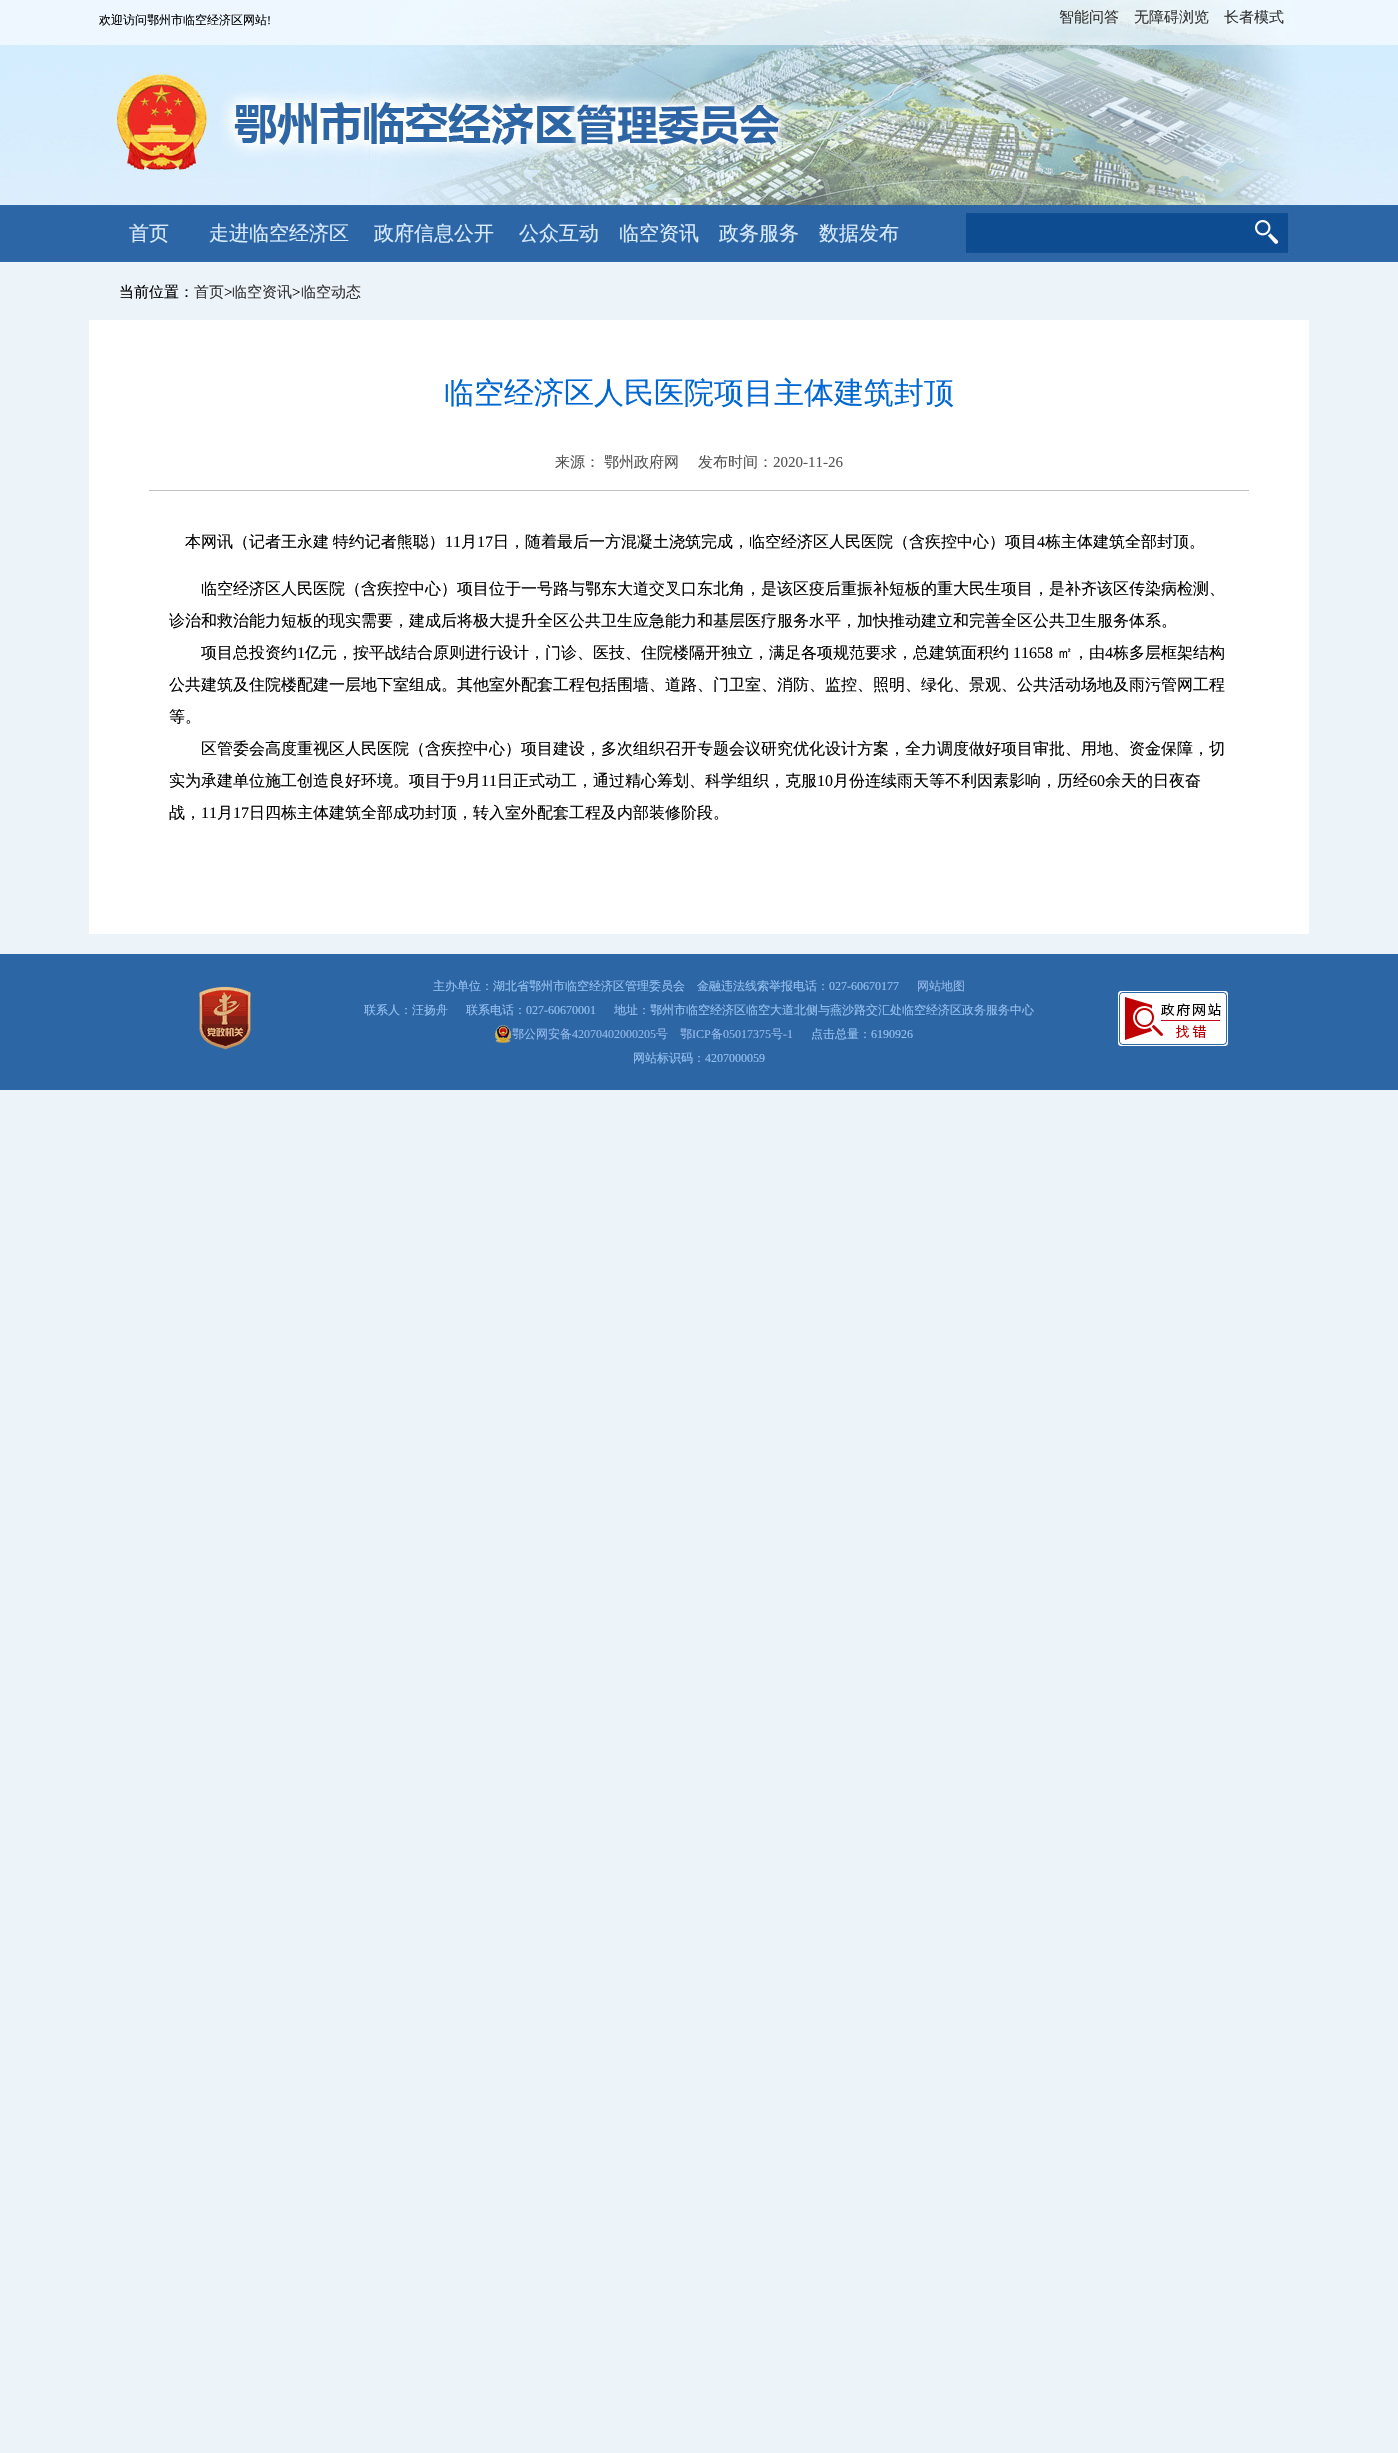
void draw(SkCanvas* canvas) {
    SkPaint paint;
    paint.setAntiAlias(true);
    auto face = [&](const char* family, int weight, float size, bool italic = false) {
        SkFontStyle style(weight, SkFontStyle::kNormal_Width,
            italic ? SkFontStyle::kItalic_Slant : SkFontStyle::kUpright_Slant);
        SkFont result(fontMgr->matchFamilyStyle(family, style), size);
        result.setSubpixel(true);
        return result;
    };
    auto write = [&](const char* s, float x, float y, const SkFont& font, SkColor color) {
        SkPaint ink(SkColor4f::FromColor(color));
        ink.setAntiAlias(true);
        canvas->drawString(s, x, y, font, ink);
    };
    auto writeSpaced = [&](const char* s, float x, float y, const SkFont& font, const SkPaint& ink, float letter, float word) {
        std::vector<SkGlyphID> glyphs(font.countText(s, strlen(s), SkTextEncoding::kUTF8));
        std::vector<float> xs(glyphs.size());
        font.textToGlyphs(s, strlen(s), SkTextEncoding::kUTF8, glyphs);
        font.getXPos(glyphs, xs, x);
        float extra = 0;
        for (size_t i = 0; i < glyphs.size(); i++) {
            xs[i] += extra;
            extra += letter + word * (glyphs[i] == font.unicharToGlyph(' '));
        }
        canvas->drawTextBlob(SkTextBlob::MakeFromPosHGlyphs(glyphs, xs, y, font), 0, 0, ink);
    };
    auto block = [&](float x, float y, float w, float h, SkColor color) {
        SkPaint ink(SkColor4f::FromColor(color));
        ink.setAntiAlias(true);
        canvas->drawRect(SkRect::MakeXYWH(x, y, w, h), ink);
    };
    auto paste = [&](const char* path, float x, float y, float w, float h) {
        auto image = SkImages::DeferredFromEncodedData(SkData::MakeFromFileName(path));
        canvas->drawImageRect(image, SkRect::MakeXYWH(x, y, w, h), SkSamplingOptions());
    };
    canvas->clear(SkColorSetRGB(236, 243, 249));
    paste("pic1.png", 0, 0, 1398, 262);
    auto kFont1 = face("WenQuanYi Zen Hei", 500, 12);
    write("欢迎访问鄂州市临空经济区网站", 99, 24, kFont1, SK_ColorBLACK);
    auto kFont2 = face("Liberation Serif", 400, 12);
    write("!", 267, 24, kFont2, SK_ColorBLACK);
    auto kFont3 = face("WenQuanYi Zen Hei", 500, 15);
    write("智能问答", 1059, 22, kFont3, SkColorSetRGB(52, 52, 52));
    canvas->save();
    canvas->clipRect(SkRect::MakeXYWH(819, 10, 480, 40));
    write("无障碍浏览", 1134, 22, kFont3, SkColorSetRGB(52, 52, 52));
    write("长者模式", 1224, 22, kFont3, SkColorSetRGB(52, 52, 52));
    canvas->restore();
    auto kFont4 = face("WenQuanYi Zen Hei", 500, 20);
    write("首页", 129, 240, kFont4, SkColorSetRGB(215, 234, 255));
    write("走进临空经济区", 209, 240, kFont4, SkColorSetRGB(215, 234, 255));
    write("政府信息公开", 374, 240, kFont4, SkColorSetRGB(215, 234, 255));
    write("公众互动", 519, 240, kFont4, SkColorSetRGB(215, 234, 255));
    write("临空资讯", 619, 240, kFont4, SkColorSetRGB(215, 234, 255));
    write("政务服务", 719, 240, kFont4, SkColorSetRGB(215, 234, 255));
    write("数据发布", 819, 240, kFont4, SkColorSetRGB(215, 234, 255));
    write("当前位置：", 119, 297, kFont3, SK_ColorBLACK);
    write("首页", 194, 297, kFont3, SkColorSetRGB(52, 52, 52));
    auto kFont5 = face("Liberation Serif", 400, 15);
    write(">", 224, 297, kFont5, SK_ColorBLACK);
    write("临空资讯", 232, 297, kFont3, SkColorSetRGB(52, 52, 52));
    write(">", 292, 297, kFont5, SK_ColorBLACK);
    write("临空动态", 301, 297, kFont3, SkColorSetRGB(52, 52, 52));
    block(89, 320, 1220, 614, SK_ColorWHITE);
    auto kFont6 = face("WenQuanYi Zen Hei", 500, 30);
    write("临空经济区人民医院项目主体建筑封顶", 444, 403, kFont6, SkColorSetRGB(0, 103, 209));
    block(149, 490, 1100, 1, SkColorSetRGB(193, 193, 193));
    write("来源：", 555, 467, kFont3, SkColorSetRGB(85, 85, 85));
    write("鄂州政府网", 604, 467, kFont3, SkColorSetRGB(85, 85, 85));
    write("发布时间：", 698, 467, kFont3, SkColorSetRGB(85, 85, 85));
    write("2020-11-26", 773, 467, kFont5, SkColorSetRGB(85, 85, 85));
    auto kFont7 = face("WenQuanYi Zen Hei", 500, 16);
    paint.setColor(SK_ColorBLACK);
    writeSpaced("本网讯（记者王永建 特约记者熊聪）", 185, 547, kFont7, paint, 0, -1);
    auto kFont8 = face("Liberation Serif", 400, 16);
    write("11", 445, 547, kFont8, SK_ColorBLACK);
    write("月", 461, 547, kFont7, SK_ColorBLACK);
    write("17", 477, 547, kFont8, SK_ColorBLACK);
    write("日，随着最后一方混凝土浇筑完成，临空经济区人民医院（含疾控中心）项目", 493, 547, kFont7, SK_ColorBLACK);
    write("4", 1037, 547, kFont8, SK_ColorBLACK);
    write("栋主体建筑全部封顶。", 1045, 547, kFont7, SK_ColorBLACK);
    write("临空经济区人民医院（含疾控中心）项目位于一号路与鄂东大道交叉口东北角，是该区疫后重振补短板的重大民生项目，是补齐该区传染病检测、", 201, 594, kFont7, SK_ColorBLACK);
    write("诊治和救治能力短板的现实需要，建成后将极大提升全区公共卫生应急能力和基层医疗服务水平，加快推动建立和完善全区公共卫生服务体系。", 169, 626, kFont7, SK_ColorBLACK);
    write("项目总投资约", 201, 658, kFont7, SK_ColorBLACK);
    write("1", 297, 658, kFont8, SK_ColorBLACK);
    write("亿元，按平战结合原则进行设计，门诊、医技、住院楼隔开独立，满足各项规范要求，总建筑面积约", 305, 658, kFont7, SK_ColorBLACK);
    write("11658", 1013, 658, kFont8, SK_ColorBLACK);
    write("㎡，由", 1057, 658, kFont7, SK_ColorBLACK);
    write("4", 1105, 658, kFont8, SK_ColorBLACK);
    write("栋多层框架结构", 1113, 658, kFont7, SK_ColorBLACK);
    write("公共建筑及住院楼配建一层地下室组成。其他室外配套工程包括围墙、道路、门卫室、消防、监控、照明、绿化、景观、公共活动场地及雨污管网工程", 169, 690, kFont7, SK_ColorBLACK);
    write("等。", 169, 722, kFont7, SK_ColorBLACK);
    write("区管委会高度重视区人民医院（含疾控中心）项目建设，多次组织召开专题会议研究优化设计方案，全力调度做好项目审批、用地、资金保障，切", 201, 754, kFont7, SK_ColorBLACK);
    write("实为承建单位施工创造良好环境。项目于", 169, 786, kFont7, SK_ColorBLACK);
    write("9", 457, 786, kFont8, SK_ColorBLACK);
    write("月", 465, 786, kFont7, SK_ColorBLACK);
    write("11", 481, 786, kFont8, SK_ColorBLACK);
    write("日正式动工，通过精心筹划、科学组织，克服", 497, 786, kFont7, SK_ColorBLACK);
    write("10", 817, 786, kFont8, SK_ColorBLACK);
    write("月份连续雨天等不利因素影响，历经", 833, 786, kFont7, SK_ColorBLACK);
    write("60", 1089, 786, kFont8, SK_ColorBLACK);
    write("余天的日夜奋", 1105, 786, kFont7, SK_ColorBLACK);
    write("战，", 169, 818, kFont7, SK_ColorBLACK);
    write("11", 201, 818, kFont8, SK_ColorBLACK);
    write("月", 217, 818, kFont7, SK_ColorBLACK);
    write("17", 233, 818, kFont8, SK_ColorBLACK);
    write("日四栋主体建筑全部成功封顶，转入室外配套工程及内部装修阶段。", 249, 818, kFont7, SK_ColorBLACK);
    block(0, 954, 1398, 136, SkColorSetRGB(45, 102, 165));
    paste("pic2.png", 199, 986, 52, 64);
    write("主办单位：湖北省鄂州市临空经济区管理委员会　金融违法线索举报电话：", 433, 990, kFont1, SkColorSetRGB(149, 193, 241));
    write("027-60670177", 829, 990, kFont2, SkColorSetRGB(149, 193, 241));
    write("网站地图", 917, 990, kFont1, SkColorSetRGB(149, 186, 236));
    write("联系人：汪扬舟", 364, 1014, kFont1, SkColorSetRGB(149, 193, 241));
    write("联系电话：", 466, 1014, kFont1, SkColorSetRGB(149, 193, 241));
    write("027-60670001", 526, 1014, kFont2, SkColorSetRGB(149, 193, 241));
    write("地址：鄂州市临空经济区临空大道北侧与燕沙路交汇处临空经济区政务服务中心", 614, 1014, kFont1, SkColorSetRGB(149, 193, 241));
    paste("pic3.png", 495, 1025, 16, 18);
    write("鄂公网安备", 512, 1038, kFont1, SkColorSetRGB(149, 186, 236));
    write("42070402000205", 572, 1038, kFont2, SkColorSetRGB(149, 186, 236));
    write("号", 656, 1038, kFont1, SkColorSetRGB(149, 186, 236));
    write("鄂", 680, 1038, kFont1, SkColorSetRGB(149, 186, 236));
    write("ICP", 692, 1038, kFont2, SkColorSetRGB(149, 186, 236));
    write("备", 711, 1038, kFont1, SkColorSetRGB(149, 186, 236));
    write("05017375", 723, 1038, kFont2, SkColorSetRGB(149, 186, 236));
    write("号", 771, 1038, kFont1, SkColorSetRGB(149, 186, 236));
    write("-1", 783, 1038, kFont2, SkColorSetRGB(149, 186, 236));
    write("点击总量：", 811, 1038, kFont1, SkColorSetRGB(149, 193, 241));
    write("6190926", 871, 1038, kFont2, SkColorSetRGB(149, 193, 241));
    write("网站标识码：", 633, 1062, kFont1, SkColorSetRGB(149, 193, 241));
    write("4207000059", 705, 1062, kFont2, SkColorSetRGB(149, 193, 241));
    paste("pic4.png", 1118, 991, 110, 55);
}
